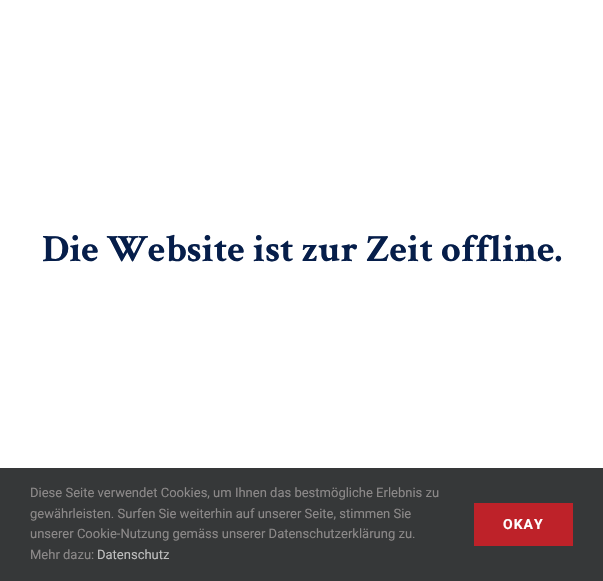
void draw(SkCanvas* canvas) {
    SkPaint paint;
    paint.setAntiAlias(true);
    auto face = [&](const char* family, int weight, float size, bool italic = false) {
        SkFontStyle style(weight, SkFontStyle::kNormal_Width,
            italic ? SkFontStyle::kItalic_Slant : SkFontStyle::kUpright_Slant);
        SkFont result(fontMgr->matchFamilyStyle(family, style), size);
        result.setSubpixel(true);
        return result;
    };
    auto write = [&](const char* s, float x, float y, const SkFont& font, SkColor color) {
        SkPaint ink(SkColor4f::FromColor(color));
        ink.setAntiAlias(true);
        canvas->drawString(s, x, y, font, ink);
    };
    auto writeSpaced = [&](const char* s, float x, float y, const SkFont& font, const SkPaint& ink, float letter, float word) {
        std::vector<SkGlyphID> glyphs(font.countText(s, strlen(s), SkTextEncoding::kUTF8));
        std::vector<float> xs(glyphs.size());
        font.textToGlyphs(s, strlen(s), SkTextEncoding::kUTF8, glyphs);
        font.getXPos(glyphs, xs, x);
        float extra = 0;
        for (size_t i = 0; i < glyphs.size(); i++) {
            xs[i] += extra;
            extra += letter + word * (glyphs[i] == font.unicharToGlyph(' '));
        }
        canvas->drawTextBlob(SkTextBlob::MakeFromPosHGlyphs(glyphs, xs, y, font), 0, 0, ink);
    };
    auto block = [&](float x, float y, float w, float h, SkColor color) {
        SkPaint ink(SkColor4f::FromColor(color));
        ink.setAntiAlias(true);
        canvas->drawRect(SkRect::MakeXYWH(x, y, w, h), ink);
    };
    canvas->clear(SK_ColorWHITE);
    auto kFont1 = face("Crimson Text", 700, 38.6f);
    write("Die Website ist zur Zeit offline.", 42, 261, kFont1, SkColorSetRGB(6, 30, 74));
    block(0, 468, 603, 113, SkColorSetRGB(54, 56, 57));
    auto kFont2 = face("Roboto", 400, 13);
    write("Diese Seite verwendet Cookies, um Ihnen das bestmögliche Erlebnis zu", 30, 497, kFont2, SkColorSetRGB(140, 137, 137));
    write("gewährleisten. Surfen Sie weiterhin auf unserer Seite, stimmen Sie", 30, 518, kFont2, SkColorSetRGB(140, 137, 137));
    write("unserer Cookie-Nutzung gemäss unserer Datenschutzerklärung zu.", 30, 538, kFont2, SkColorSetRGB(140, 137, 137));
    write("Mehr dazu:", 30, 559, kFont2, SkColorSetRGB(140, 137, 137));
    write("Datenschutz", 97, 559, kFont2, SkColorSetRGB(191, 191, 191));
    block(474, 503, 99, 43, SkColorSetRGB(190, 34, 41));
    auto kFont3 = face("Roboto", 700, 14);
    paint.setColor(SK_ColorWHITE);
    writeSpaced("OKAY", 503, 529, kFont3, paint, 1, 0);
}
